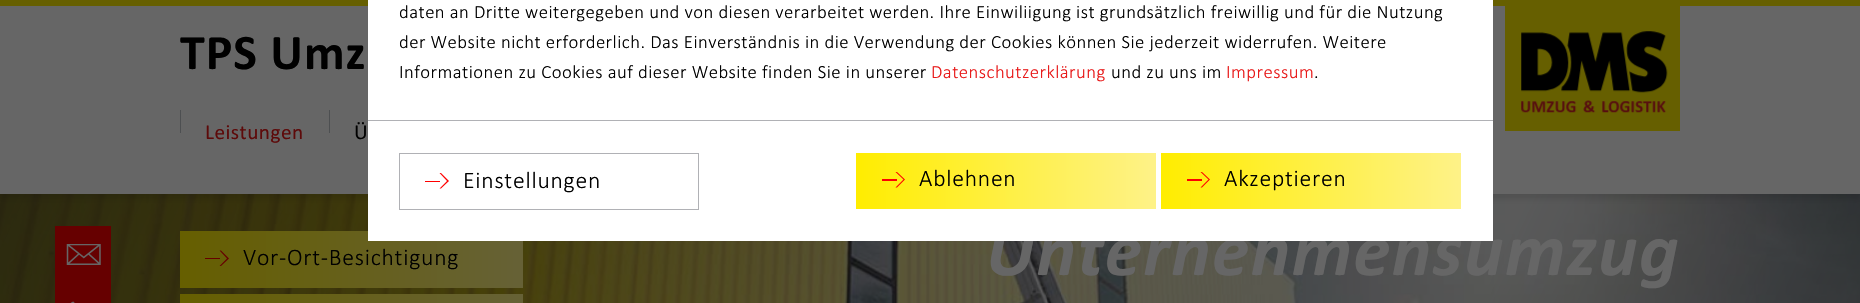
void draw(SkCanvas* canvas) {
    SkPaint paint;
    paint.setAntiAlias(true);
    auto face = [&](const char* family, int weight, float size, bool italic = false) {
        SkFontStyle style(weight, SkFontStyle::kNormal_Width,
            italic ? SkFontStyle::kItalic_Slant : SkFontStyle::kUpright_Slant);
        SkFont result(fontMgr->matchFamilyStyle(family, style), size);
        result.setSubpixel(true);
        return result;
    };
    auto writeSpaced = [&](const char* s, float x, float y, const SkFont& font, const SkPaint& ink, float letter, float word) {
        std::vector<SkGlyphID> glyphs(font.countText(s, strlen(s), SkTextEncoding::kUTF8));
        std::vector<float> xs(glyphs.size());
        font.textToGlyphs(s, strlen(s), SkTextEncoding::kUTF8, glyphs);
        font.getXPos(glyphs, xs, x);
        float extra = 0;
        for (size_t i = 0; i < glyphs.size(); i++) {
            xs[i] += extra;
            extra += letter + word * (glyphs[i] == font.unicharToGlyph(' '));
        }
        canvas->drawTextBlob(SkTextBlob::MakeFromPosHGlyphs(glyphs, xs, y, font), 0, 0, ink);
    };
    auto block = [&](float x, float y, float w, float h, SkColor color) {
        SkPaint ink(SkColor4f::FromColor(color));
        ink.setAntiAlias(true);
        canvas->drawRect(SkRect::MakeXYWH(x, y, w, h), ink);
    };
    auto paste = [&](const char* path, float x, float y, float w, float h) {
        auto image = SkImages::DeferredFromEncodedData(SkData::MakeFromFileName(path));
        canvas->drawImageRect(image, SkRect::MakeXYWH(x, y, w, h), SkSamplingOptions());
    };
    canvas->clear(SK_ColorWHITE);
    paste("pic4.png", 0, 194, 1860, 109);
    paint.setColor(SkColorSetARGB(26, 0, 0, 0));
    paint.setMaskFilter(SkMaskFilter::MakeBlur(kNormal_SkBlurStyle, 2.5f));
    canvas->drawRect(SkRect::MakeXYWH(0, 5, 1860, 194), paint);
    paint.setMaskFilter(nullptr);
    block(0, 6, 1860, 188, SkColorSetRGB(102, 102, 102));
    block(0, 0, 1860, 6, SkColorSetRGB(102, 95, 0));
    auto kFont1 = face("Calibri", 700, 50);
    paint.setColor(SK_ColorBLACK);
    writeSpaced("TPS Umz", 180, 69, kFont1, paint, 1, 0);
    block(1505, 6, 175, 125, SkColorSetRGB(102, 95, 0));
    paste("pic1.png", 1521, 31, 147, 82);
    block(180, 110, 1, 23, SkColorSetRGB(77, 79, 81));
    auto kFont2 = face("Calibri", 400, 21.25f);
    paint.setColor(SkColorSetRGB(93, 10, 10));
    writeSpaced("Leistungen", 205, 139, kFont2, paint, 0.47f, 0);
    block(329, 110, 1, 23, SkColorSetRGB(77, 79, 81));
    paint.setColor(SK_ColorBLACK);
    writeSpaced("Ü", 354, 139, kFont2, paint, 0.47f, 0);
    block(55, 226, 56, 77, SkColorSetRGB(102, 0, 0));
    paste("pic2.png", 66, 244, 35, 21);
    paste("pic3.png", 70, 301, 5, 2);
    {
        const SkColor colors[] = {SkColorSetRGB(102, 95, 0), SkColorSetRGB(102, 97, 54)};
        const float stops[] = {0, 1};
        const SkPoint ends[] = {{180, 259}, {523, 259}};
        paint.setShader(SkGradientShader::MakeLinear(ends, colors, stops, 2, SkTileMode::kClamp));
        paint.setAlpha(255);
    }
    canvas->drawRect(SkRect::MakeXYWH(180, 231, 343, 57), paint);
    auto kFont3 = face("Calibri", 700, 75, true);
    paint.setShader(nullptr);
    paint.setColor(SkColorSetRGB(102, 102, 102));
    writeSpaced("Unternehmensumzug", 986, 275, kFont3, paint, 1.5f, 0);
    block(368, 0, 1125, 241, SK_ColorWHITE);
    auto kFont4 = face("Calibri", 300, 18.75f);
    paint.setColor(SK_ColorBLACK);
    writeSpaced("daten an Dritte weitergegeben und von diesen verarbeitet werden. Ihre Einwiliigung ist grundsätzlich freiwillig und für die Nutzung", 399, 18, kFont4, paint, 0.47f, 0);
    writeSpaced("der Website nicht erforderlich. Das Einverständnis in die Verwendung der Cookies können Sie jederzeit widerrufen. Weitere", 399, 48, kFont4, paint, 0.47f, 0);
    writeSpaced("Informationen zu Cookies auf dieser Website finden Sie in unserer", 399, 78, kFont4, paint, 0.47f, 0);
    paint.setColor(SkColorSetRGB(232, 25, 25));
    writeSpaced("Datenschutzerklärung", 931, 78, kFont4, paint, 0.47f, 0);
    paint.setColor(SK_ColorBLACK);
    writeSpaced("und zu uns im", 1111, 78, kFont4, paint, 0.47f, 0);
    paint.setColor(SkColorSetRGB(232, 25, 25));
    writeSpaced("Impressum", 1226, 78, kFont4, paint, 0.47f, 0);
    paint.setColor(SK_ColorBLACK);
    writeSpaced(".", 1314, 78, kFont4, paint, 0.47f, 0);
    block(368, 120, 1125, 1, SkColorSetRGB(176, 177, 181));
    paint.setStyle(SkPaint::kStroke_Style);
    paint.setStrokeWidth(1);
    paint.setColor(SkColorSetRGB(176, 177, 181));
    canvas->drawRect(SkRect::MakeXYWH(399.5f, 153.5f, 299, 56), paint);
    block(425, 181, 15, 1, SkColorSetRGB(255, 0, 0));
    paint.setStyle(SkPaint::kFill_Style);
    paint.setColor(SkColorSetRGB(255, 0, 0));
    canvas->drawPath(SkPathBuilder().moveTo(441, 173).lineTo(439.5f, 173).lineTo(447, 181).lineTo(439.5f, 188.5f).lineTo(441, 188.5f).lineTo(449, 181).close().detach(), paint);
    auto kFont5 = face("Calibri", 300, 23.75f);
    paint.setColor(SK_ColorBLACK);
    writeSpaced("Einstellungen", 463, 188, kFont5, paint, 0.75f, 0);
    {
        const SkColor colors[] = {SkColorSetRGB(255, 237, 0), SkColorSetRGB(254, 242, 136)};
        const float stops[] = {0, 1};
        const SkPoint ends[] = {{856, 181}, {1156, 181}};
        paint.setShader(SkGradientShader::MakeLinear(ends, colors, stops, 2, SkTileMode::kClamp));
        paint.setAlpha(255);
    }
    canvas->drawRect(SkRect::MakeXYWH(856, 153, 300, 56), paint);
    block(882, 179, 15, 2, SkColorSetRGB(255, 0, 0));
    paint.setShader(nullptr);
    paint.setColor(SkColorSetRGB(255, 0, 0));
    canvas->drawPath(SkPathBuilder().moveTo(897, 172).lineTo(895.5f, 172).lineTo(903.5f, 179.5f).lineTo(895.5f, 187.5f).lineTo(897, 187.5f).lineTo(905, 179.5f).close().detach(), paint);
    paint.setColor(SK_ColorBLACK);
    writeSpaced("Ablehnen", 919, 186, kFont5, paint, 0.75f, 0);
    {
        const SkColor colors[] = {SkColorSetRGB(255, 237, 0), SkColorSetRGB(254, 242, 136)};
        const float stops[] = {0, 1};
        const SkPoint ends[] = {{1161, 181}, {1461, 181}};
        paint.setShader(SkGradientShader::MakeLinear(ends, colors, stops, 2, SkTileMode::kClamp));
        paint.setAlpha(255);
    }
    canvas->drawRect(SkRect::MakeXYWH(1161, 153, 300, 56), paint);
    block(1187, 179, 15, 2, SkColorSetRGB(255, 0, 0));
    paint.setShader(nullptr);
    paint.setColor(SkColorSetRGB(255, 0, 0));
    canvas->drawPath(SkPathBuilder().moveTo(1202, 172).lineTo(1200.5f, 172).lineTo(1208.5f, 179.5f).lineTo(1200.5f, 187.5f).lineTo(1202, 187.5f).lineTo(1210, 179.5f).close().detach(), paint);
    paint.setColor(SK_ColorBLACK);
    writeSpaced("Akzeptieren", 1224, 186, kFont5, paint, 0.75f, 0);
    block(205, 258, 15, 1, SkColorSetRGB(102, 0, 0));
    paint.setColor(SkColorSetRGB(102, 0, 0));
    canvas->drawPath(SkPathBuilder().moveTo(221, 250.5f).lineTo(219.5f, 250.5f).lineTo(227, 258.5f).lineTo(219.5f, 266).lineTo(221, 266).lineTo(229, 258.5f).close().detach(), paint);
    paint.setColor(SK_ColorBLACK);
    writeSpaced("Vor-Ort-Besichtigung", 243, 265, kFont5, paint, 0.75f, 0);
    {
        const SkColor colors[] = {SkColorSetRGB(102, 95, 0), SkColorSetRGB(102, 97, 54)};
        const float stops[] = {0, 1};
        const SkPoint ends[] = {{180, 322}, {523, 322}};
        paint.setShader(SkGradientShader::MakeLinear(ends, colors, stops, 2, SkTileMode::kClamp));
        paint.setAlpha(255);
    }
    canvas->drawRect(SkRect::MakeXYWH(180, 294, 343, 9), paint);
}
